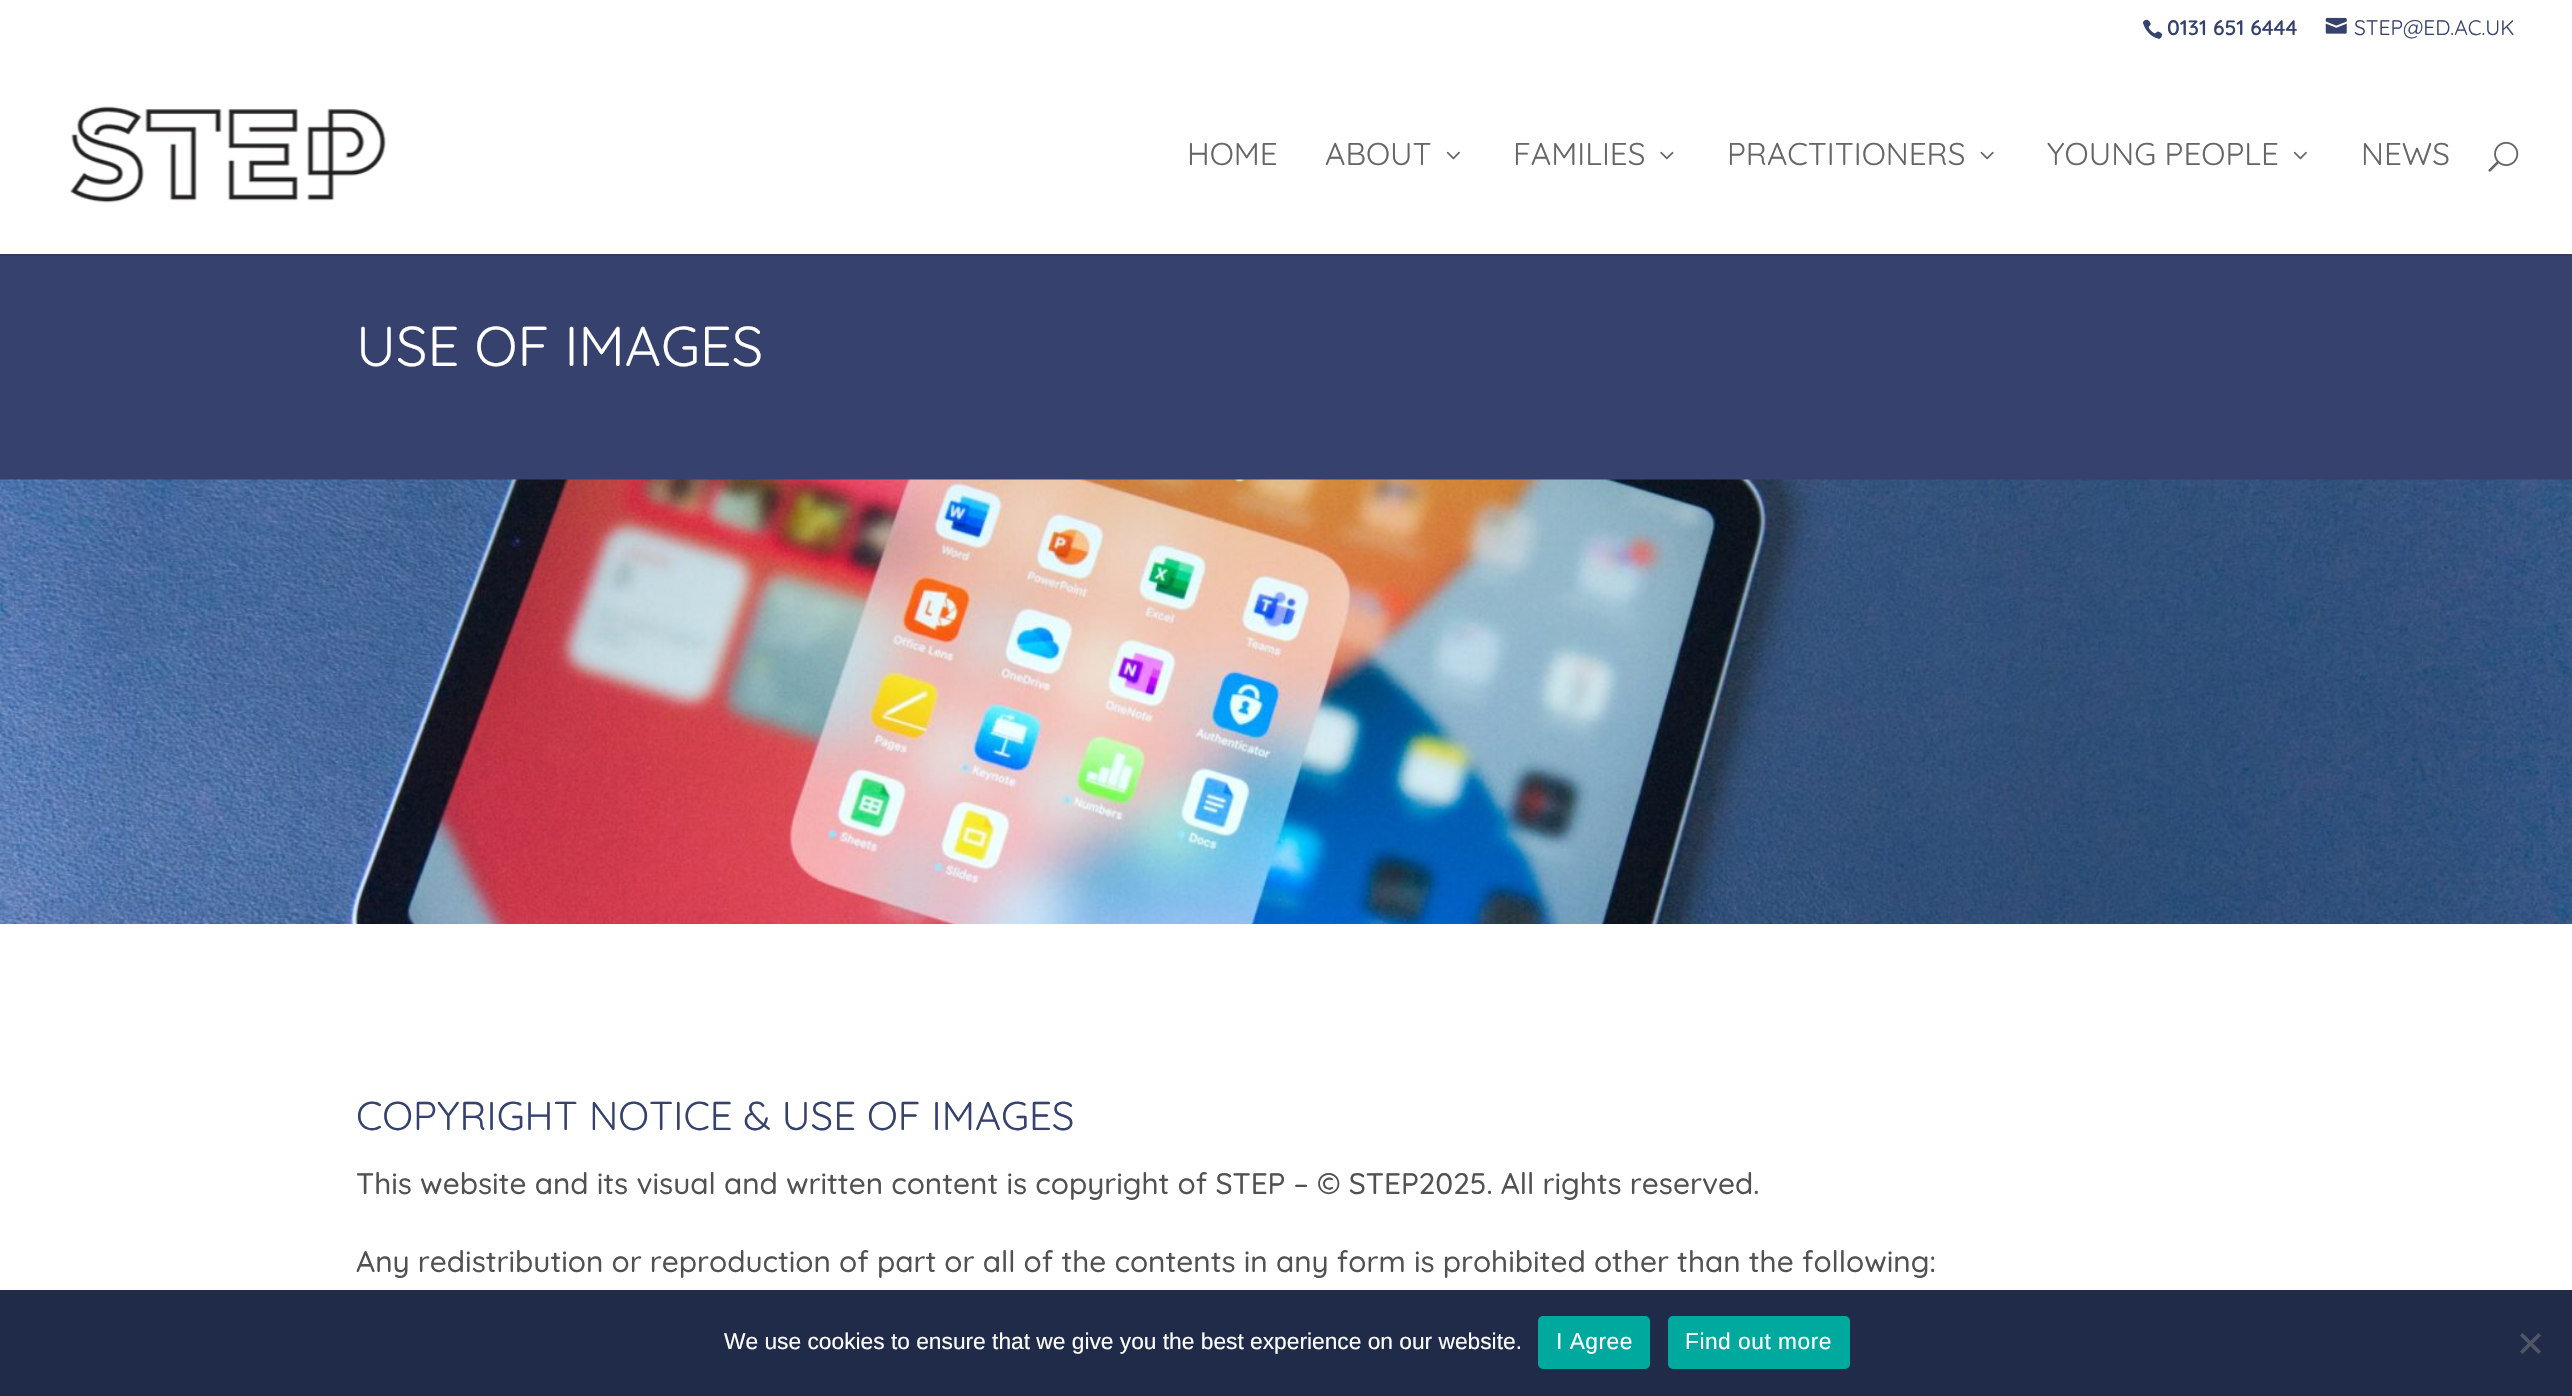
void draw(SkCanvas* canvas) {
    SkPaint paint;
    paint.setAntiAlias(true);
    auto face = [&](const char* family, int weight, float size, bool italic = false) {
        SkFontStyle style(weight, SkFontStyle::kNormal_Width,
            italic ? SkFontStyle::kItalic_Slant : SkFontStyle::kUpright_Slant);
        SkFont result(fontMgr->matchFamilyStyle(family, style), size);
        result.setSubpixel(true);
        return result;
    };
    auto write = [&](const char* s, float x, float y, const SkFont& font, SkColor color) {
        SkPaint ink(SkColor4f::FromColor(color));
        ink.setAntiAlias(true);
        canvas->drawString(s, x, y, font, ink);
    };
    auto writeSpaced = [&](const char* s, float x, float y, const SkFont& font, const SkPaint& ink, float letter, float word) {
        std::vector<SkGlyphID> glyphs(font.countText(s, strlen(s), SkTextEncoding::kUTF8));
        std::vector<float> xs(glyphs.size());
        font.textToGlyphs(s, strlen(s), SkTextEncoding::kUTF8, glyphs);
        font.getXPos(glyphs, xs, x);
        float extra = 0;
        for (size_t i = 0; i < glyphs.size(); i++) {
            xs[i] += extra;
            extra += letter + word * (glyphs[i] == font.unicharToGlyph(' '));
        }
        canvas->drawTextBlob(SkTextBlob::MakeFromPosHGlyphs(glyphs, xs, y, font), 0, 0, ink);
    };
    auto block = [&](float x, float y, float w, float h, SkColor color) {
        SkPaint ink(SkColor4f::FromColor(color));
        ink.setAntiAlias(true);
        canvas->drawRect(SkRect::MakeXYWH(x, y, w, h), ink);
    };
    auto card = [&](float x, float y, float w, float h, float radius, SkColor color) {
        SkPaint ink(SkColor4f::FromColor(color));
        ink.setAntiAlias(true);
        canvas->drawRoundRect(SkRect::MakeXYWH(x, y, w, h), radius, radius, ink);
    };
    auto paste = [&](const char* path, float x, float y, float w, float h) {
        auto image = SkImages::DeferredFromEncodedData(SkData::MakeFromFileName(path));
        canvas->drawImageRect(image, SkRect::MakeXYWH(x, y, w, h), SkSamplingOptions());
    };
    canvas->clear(SK_ColorWHITE);
    paste("pic1.png", 2142, 19, 21, 20);
    auto kFont1 = face("Quicksand", 600, 21);
    write("0131 651 6444", 2167, 35, kFont1, SkColorSetRGB(54, 66, 109));
    paste("pic2.png", 2325, 17, 22, 17);
    auto kFont2 = face("Quicksand", 400, 21);
    write("STEP@ED.AC.UK", 2354, 35, kFont2, SkColorSetRGB(54, 66, 109));
    paint.setColor(SkColorSetRGB(49, 59, 98));
    canvas->drawPath(SkPathBuilder().moveTo(0, 254).lineTo(0, 256).lineTo(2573, 256).lineTo(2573, 56).lineTo(2572, 56).lineTo(2572, 254).close().detach(), paint);
    paste("pic3.png", 70, 106, 316, 97);
    auto kFont3 = face("Quicksand", 400, 31.5f);
    write("HOME", 1187, 165, kFont3, SkColorSetRGB(102, 102, 102));
    write("ABOUT", 1325, 165, kFont3, SkColorSetRGB(102, 102, 102));
    paste("pic4.png", 1446, 151, 14, 9);
    write("FAMILIES", 1513, 165, kFont3, SkColorSetRGB(102, 102, 102));
    paste("pic5.png", 1660, 151, 14, 9);
    write("PRACTITIONERS", 1727, 165, kFont3, SkColorSetRGB(102, 102, 102));
    paste("pic6.png", 1980, 151, 14, 9);
    write("YOUNG PEOPLE", 2047, 165, kFont3, SkColorSetRGB(102, 102, 102));
    paste("pic4.png", 2293, 151, 14, 9);
    write("NEWS", 2361, 165, kFont3, SkColorSetRGB(102, 102, 102));
    paste("pic7.png", 2488, 141, 31, 31);
    block(0, 256, 2572, 224, SkColorSetRGB(54, 66, 109));
    auto kFont4 = face("Quicksand", 400, 56);
    write("USE OF IMAGES", 356, 366, kFont4, SK_ColorWHITE);
    paste("pic8.png", 0, 479, 2572, 445);
    auto kFont5 = face("Quicksand", 400, 40.25f);
    write("COPYRIGHT NOTICE & USE OF IMAGES", 356, 1130, kFont5, SkColorSetRGB(54, 66, 109));
    auto kFont6 = face("Quicksand", 500, 29.75f);
    write("This website and its visual and written content is copyright of STEP – © STEP2025. All rights reserved.", 356, 1194, kFont6, SkColorSetRGB(81, 81, 81));
    write("Any redistribution or reproduction of part or all of the contents in any form is prohibited other than the following:", 356, 1272, kFont6, SkColorSetRGB(81, 81, 81));
    block(0, 1290, 2572, 106, SkColorSetRGB(31, 43, 73));
    auto kFont7 = face("Liberation Sans", 400, 22.75f);
    write("We use cookies to ensure that we give you the best experience on our website.", 724, 1349, kFont7, SK_ColorWHITE);
    card(1538, 1316, 112, 53, 5, SkColorSetRGB(0, 169, 157));
    paint.setColor(SK_ColorWHITE);
    writeSpaced("I Agree", 1556, 1349, kFont7, paint, 0.5f, 0);
    card(1668, 1316, 182, 53, 5, SkColorSetRGB(0, 169, 157));
    writeSpaced("Find out more", 1685, 1349, kFont7, paint, 0.5f, 0);
    paint.setColor(SkColorSetRGB(80, 86, 101));
    canvas->drawPath(SkPathBuilder().moveTo(2538.5f, 1333).lineTo(2541, 1335.5f).lineTo(2522.5f, 1354).lineTo(2520, 1351.5f).close().detach(), paint);
    canvas->drawPath(SkPathBuilder().moveTo(2520, 1335.5f).lineTo(2522.5f, 1333).lineTo(2541, 1351.5f).lineTo(2538.5f, 1354).close().detach(), paint);
}
